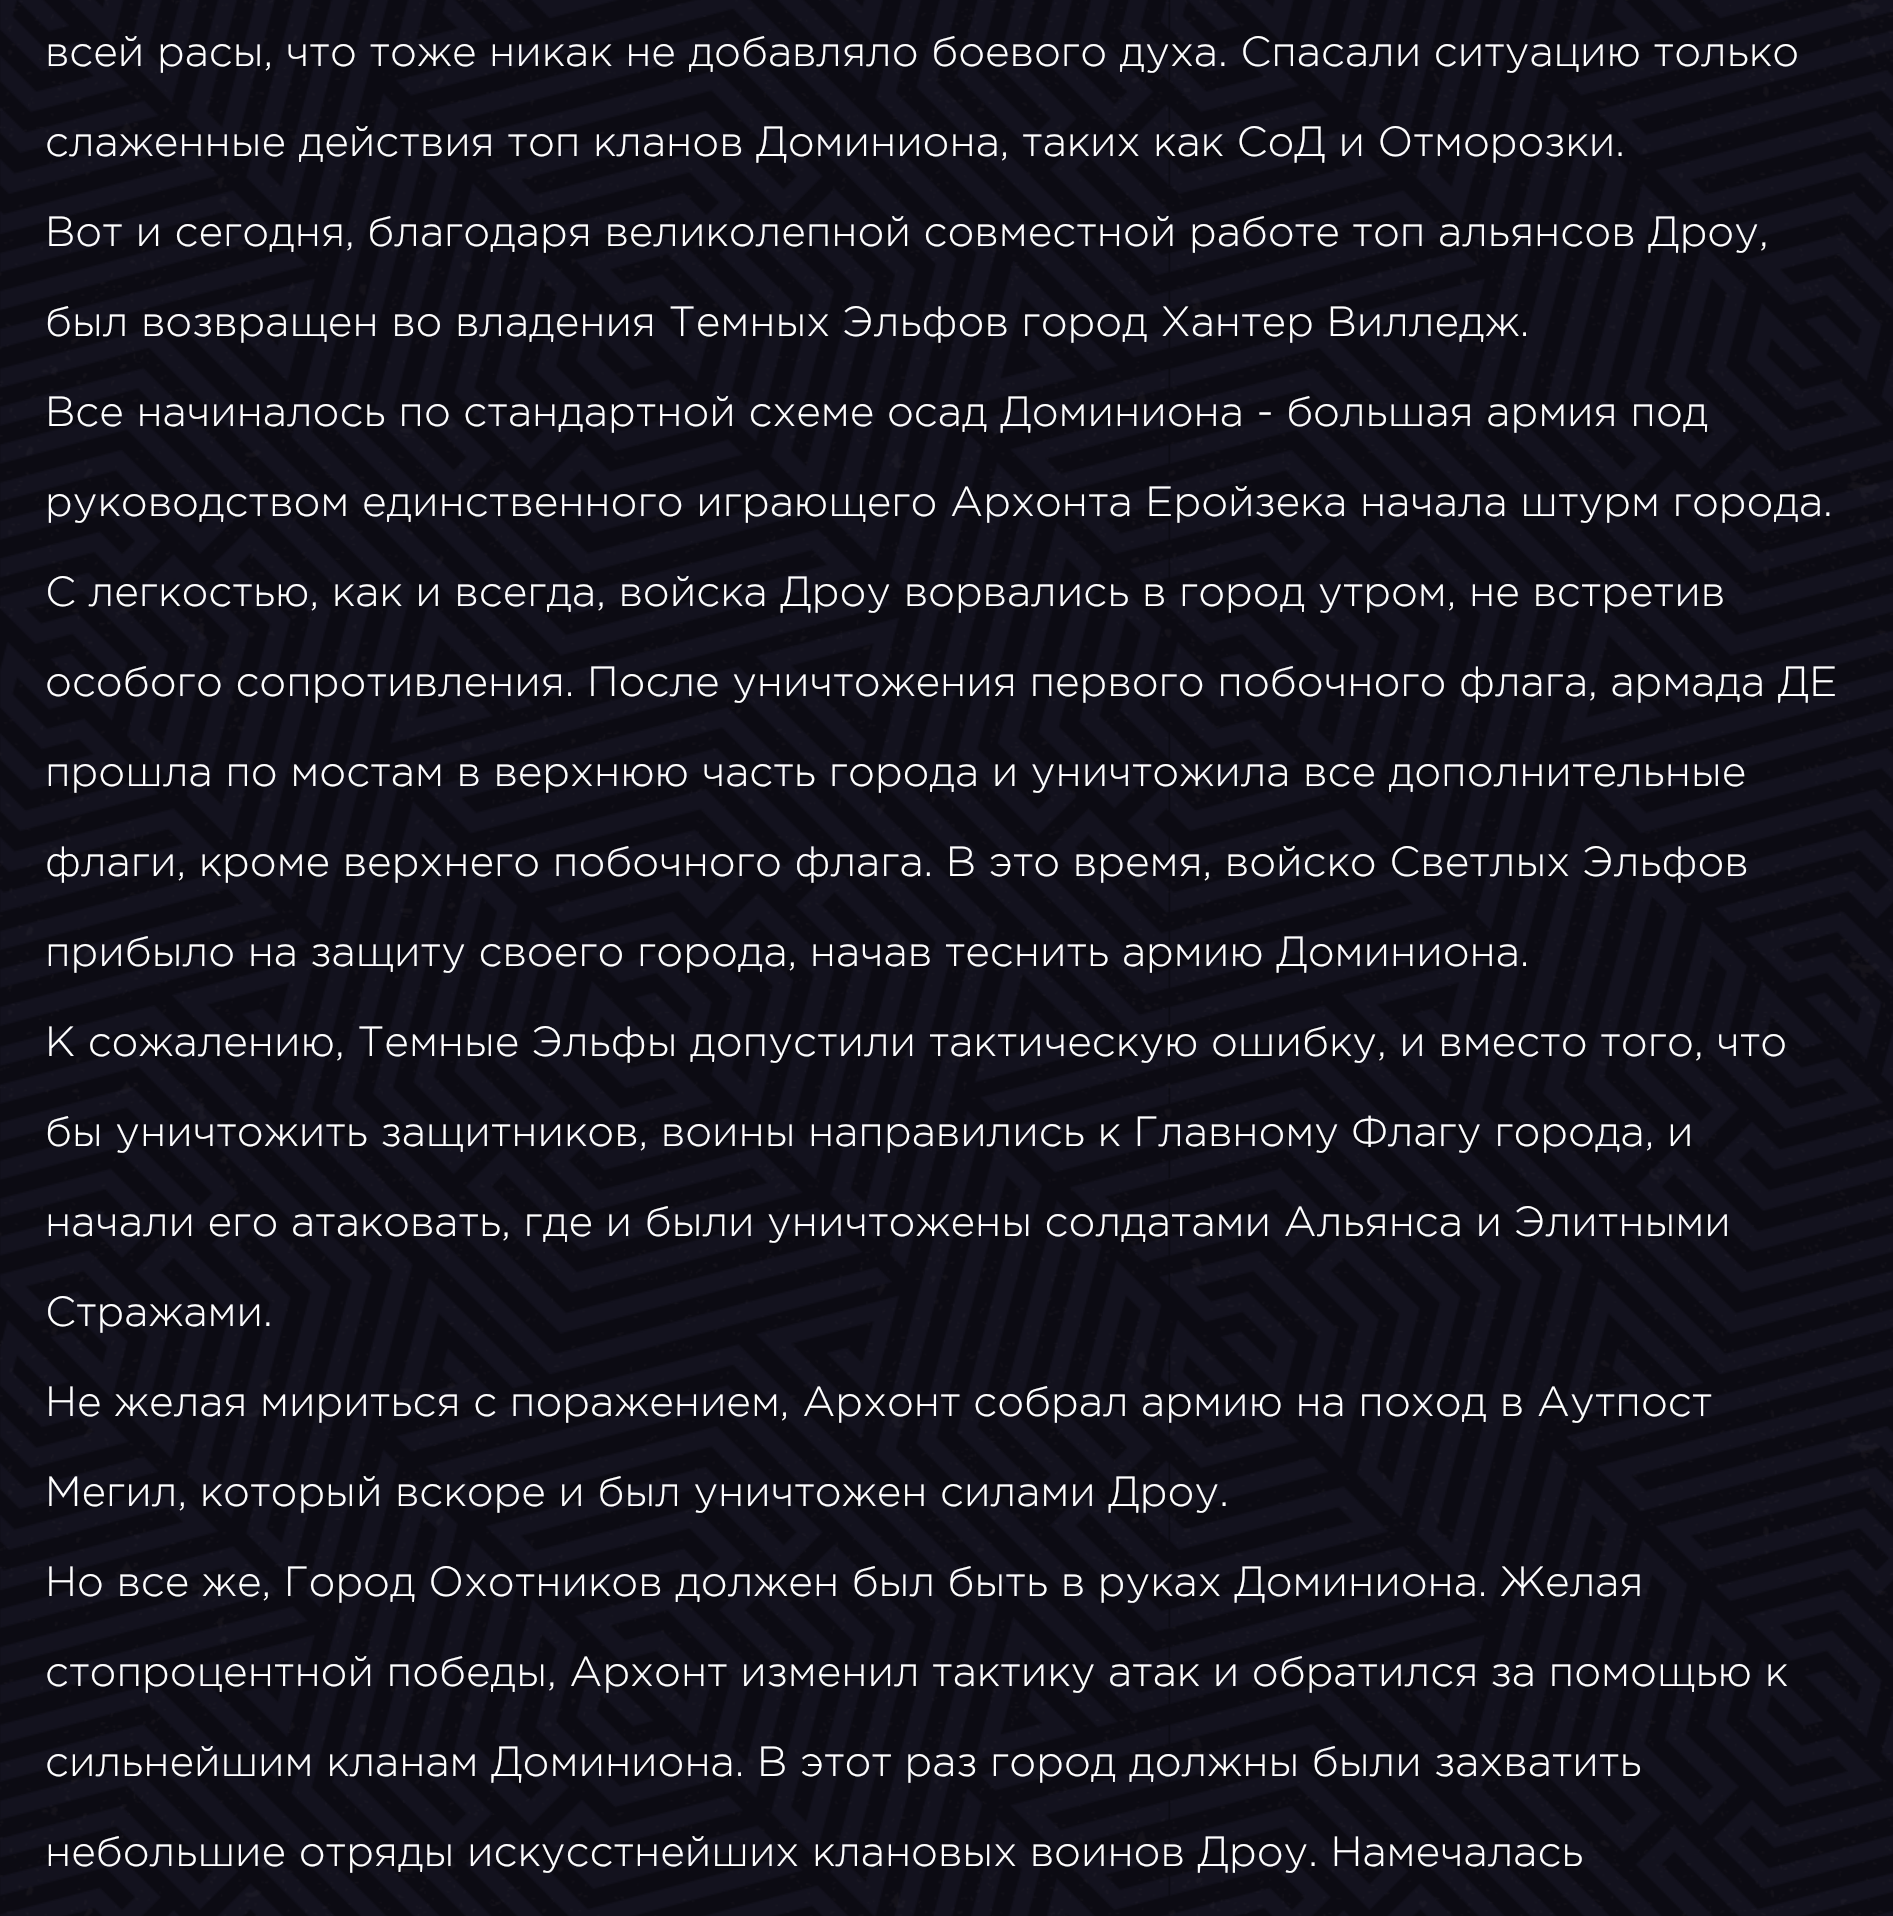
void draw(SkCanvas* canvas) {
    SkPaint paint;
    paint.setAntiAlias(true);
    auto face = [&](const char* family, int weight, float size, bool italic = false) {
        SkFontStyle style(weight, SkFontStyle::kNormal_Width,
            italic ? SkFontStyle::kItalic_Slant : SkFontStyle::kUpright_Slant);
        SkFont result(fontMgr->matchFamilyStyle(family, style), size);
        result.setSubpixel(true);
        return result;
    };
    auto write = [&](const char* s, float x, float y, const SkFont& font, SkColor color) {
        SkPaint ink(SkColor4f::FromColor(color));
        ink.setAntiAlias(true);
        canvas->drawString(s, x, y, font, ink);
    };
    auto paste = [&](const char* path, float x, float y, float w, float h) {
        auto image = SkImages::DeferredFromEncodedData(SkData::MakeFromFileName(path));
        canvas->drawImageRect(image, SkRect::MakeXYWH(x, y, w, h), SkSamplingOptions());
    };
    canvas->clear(SkColorSetRGB(12, 11, 19));
    paste("pic1.png", 0, 0, 1893, 1916);
    paste("pic2.png", 0, 0, 1893, 1916);
    auto kFont1 = face("Gotham", 300, 42);
    write("всей расы, что тоже никак не добавляло боевого духа. Спасали ситуацию только", 45, 66, kFont1, SK_ColorWHITE);
    write("слаженные действия топ кланов Доминиона, таких как СоД и Отморозки.", 45, 156, kFont1, SK_ColorWHITE);
    write("Вот и сегодня, благодаря великолепной совместной работе топ альянсов Дроу,", 45, 246, kFont1, SK_ColorWHITE);
    write("был возвращен во владения Темных Эльфов город Хантер Вилледж.", 45, 336, kFont1, SK_ColorWHITE);
    write("Все начиналось по стандартной схеме осад Доминиона - большая армия под", 45, 426, kFont1, SK_ColorWHITE);
    write("руководством единственного играющего Архонта Еройзека начала штурм города.", 45, 516, kFont1, SK_ColorWHITE);
    write("С легкостью, как и всегда, войска Дроу ворвались в город утром, не встретив", 45, 606, kFont1, SK_ColorWHITE);
    write("особого сопротивления. После уничтожения первого побочного флага, армада ДЕ", 45, 696, kFont1, SK_ColorWHITE);
    write("прошла по мостам в верхнюю часть города и уничтожила все дополнительные", 45, 786, kFont1, SK_ColorWHITE);
    write("флаги, кроме верхнего побочного флага. В это время, войско Светлых Эльфов", 45, 876, kFont1, SK_ColorWHITE);
    write("прибыло на защиту своего города, начав теснить армию Доминиона.", 45, 966, kFont1, SK_ColorWHITE);
    write("К сожалению, Темные Эльфы допустили тактическую ошибку, и вместо того, что", 45, 1056, kFont1, SK_ColorWHITE);
    write("бы уничтожить защитников, воины направились к Главному Флагу города, и", 45, 1146, kFont1, SK_ColorWHITE);
    write("начали его атаковать, где и были уничтожены солдатами Альянса и Элитными", 45, 1236, kFont1, SK_ColorWHITE);
    write("Стражами.", 45, 1326, kFont1, SK_ColorWHITE);
    write("Не желая мириться с поражением, Архонт собрал армию на поход в Аутпост", 45, 1416, kFont1, SK_ColorWHITE);
    write("Мегил, который вскоре и был уничтожен силами Дроу.", 45, 1506, kFont1, SK_ColorWHITE);
    write("Но все же, Город Охотников должен был быть в руках Доминиона. Желая", 45, 1596, kFont1, SK_ColorWHITE);
    write("стопроцентной победы, Архонт изменил тактику атак и обратился за помощью к", 45, 1686, kFont1, SK_ColorWHITE);
    write("сильнейшим кланам Доминиона. В этот раз город должны были захватить", 45, 1776, kFont1, SK_ColorWHITE);
    write("небольшие отряды искусстнейших клановых воинов Дроу. Намечалась", 45, 1866, kFont1, SK_ColorWHITE);
}
